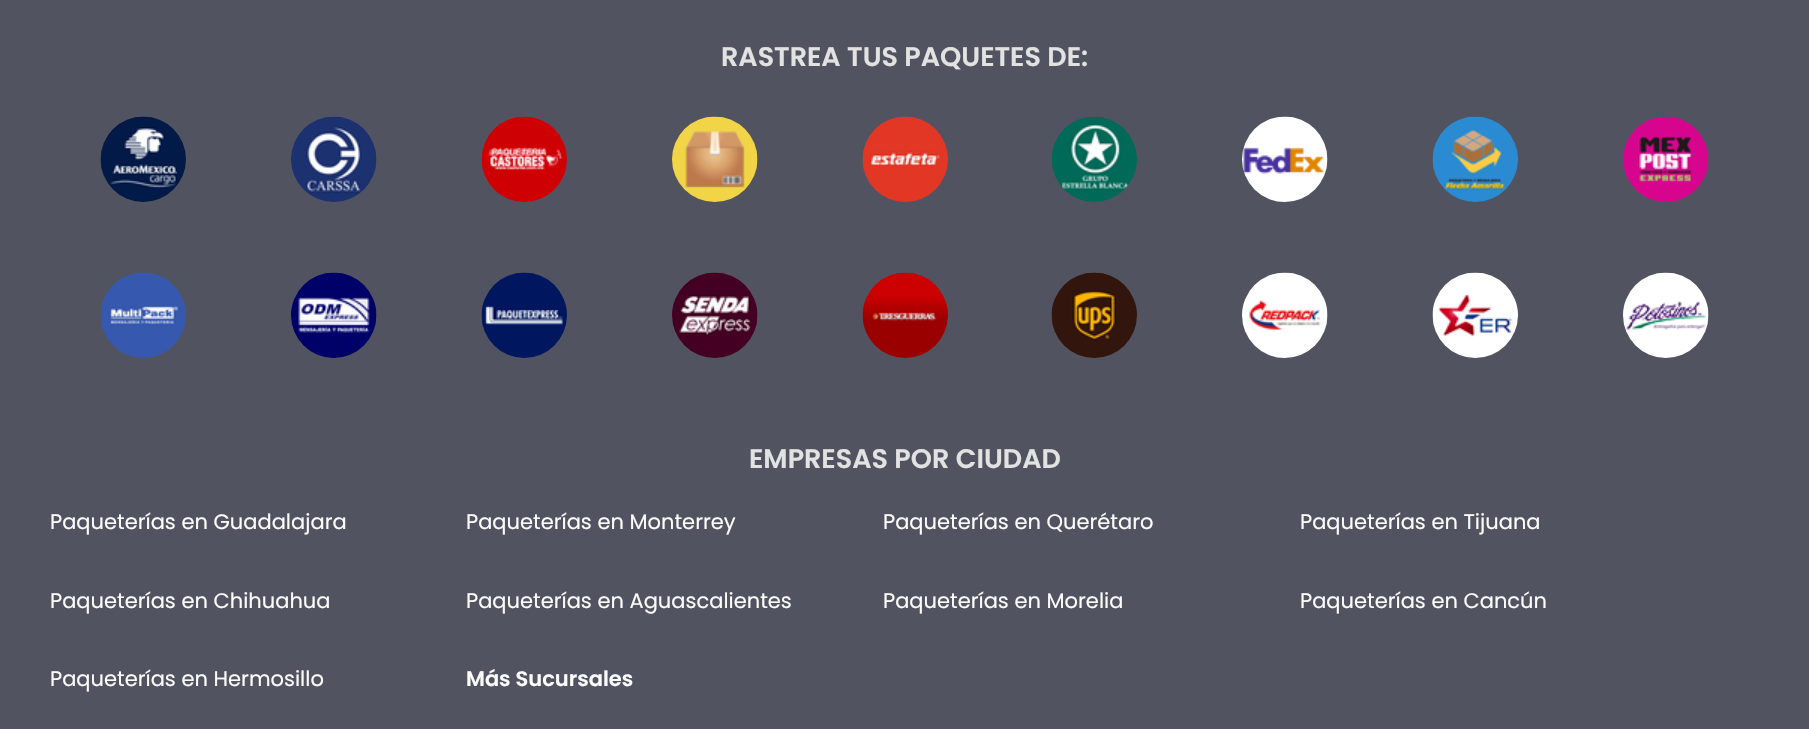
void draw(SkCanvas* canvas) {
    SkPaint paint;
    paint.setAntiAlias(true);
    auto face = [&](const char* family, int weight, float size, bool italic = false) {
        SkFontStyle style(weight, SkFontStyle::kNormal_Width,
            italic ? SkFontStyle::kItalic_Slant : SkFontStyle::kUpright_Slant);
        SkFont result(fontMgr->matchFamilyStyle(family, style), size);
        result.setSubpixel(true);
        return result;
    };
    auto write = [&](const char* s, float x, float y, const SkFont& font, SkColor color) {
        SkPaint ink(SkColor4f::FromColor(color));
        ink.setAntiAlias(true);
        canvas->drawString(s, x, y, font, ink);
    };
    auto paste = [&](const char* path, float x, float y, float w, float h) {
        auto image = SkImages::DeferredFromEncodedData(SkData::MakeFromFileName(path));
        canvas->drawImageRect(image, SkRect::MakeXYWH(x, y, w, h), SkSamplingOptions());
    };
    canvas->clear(SkColorSetRGB(82, 83, 96));
    auto kFont1 = face("Poppins", 600, 27);
    write("RASTREA TUS PAQUETES DE:", 721, 66, kFont1, SkColorSetRGB(226, 226, 226));
    paste("pic1.png", 100, 116, 86, 86);
    paste("pic2.png", 291, 116, 86, 86);
    paste("pic3.png", 481, 116, 86, 86);
    paste("pic4.png", 672, 116, 86, 86);
    paste("pic5.png", 862, 116, 86, 86);
    paste("pic6.png", 1051, 116, 86, 86);
    paste("pic7.png", 1242, 116, 86, 86);
    paste("pic8.png", 1432, 116, 86, 86);
    paste("pic9.png", 1623, 116, 86, 86);
    paste("pic10.png", 100, 272, 86, 86);
    paste("pic11.png", 291, 272, 86, 86);
    paste("pic12.png", 481, 272, 86, 86);
    paste("pic13.png", 672, 272, 86, 86);
    paste("pic14.png", 862, 272, 86, 86);
    paste("pic15.png", 1051, 272, 86, 86);
    paste("pic16.png", 1242, 272, 86, 86);
    paste("pic17.png", 1432, 272, 86, 86);
    paste("pic18.png", 1623, 272, 86, 86);
    write("EMPRESAS POR CIUDAD", 749, 468, kFont1, SkColorSetRGB(226, 226, 226));
    auto kFont2 = face("Poppins", 400, 21);
    write("Paqueterías en Guadalajara", 50, 529, kFont2, SkColorSetRGB(252, 252, 252));
    write("Paqueterías en Monterrey", 466, 529, kFont2, SkColorSetRGB(252, 252, 252));
    write("Paqueterías en Querétaro", 883, 529, kFont2, SkColorSetRGB(252, 252, 252));
    write("Paqueterías en Tijuana", 1300, 529, kFont2, SkColorSetRGB(252, 252, 252));
    write("Paqueterías en Chihuahua", 50, 608, kFont2, SkColorSetRGB(252, 252, 252));
    write("Paqueterías en Aguascalientes", 466, 608, kFont2, SkColorSetRGB(252, 252, 252));
    write("Paqueterías en Morelia", 883, 608, kFont2, SkColorSetRGB(252, 252, 252));
    write("Paqueterías en Cancún", 1300, 608, kFont2, SkColorSetRGB(252, 252, 252));
    write("Paqueterías en Hermosillo", 50, 686, kFont2, SkColorSetRGB(252, 252, 252));
    auto kFont3 = face("Poppins", 600, 21);
    write("Más Sucursales", 466, 686, kFont3, SkColorSetRGB(252, 252, 252));
}
